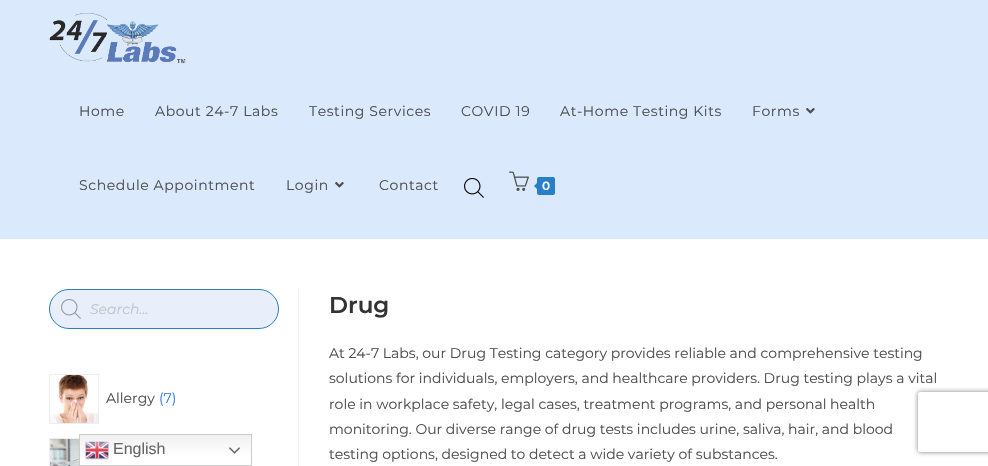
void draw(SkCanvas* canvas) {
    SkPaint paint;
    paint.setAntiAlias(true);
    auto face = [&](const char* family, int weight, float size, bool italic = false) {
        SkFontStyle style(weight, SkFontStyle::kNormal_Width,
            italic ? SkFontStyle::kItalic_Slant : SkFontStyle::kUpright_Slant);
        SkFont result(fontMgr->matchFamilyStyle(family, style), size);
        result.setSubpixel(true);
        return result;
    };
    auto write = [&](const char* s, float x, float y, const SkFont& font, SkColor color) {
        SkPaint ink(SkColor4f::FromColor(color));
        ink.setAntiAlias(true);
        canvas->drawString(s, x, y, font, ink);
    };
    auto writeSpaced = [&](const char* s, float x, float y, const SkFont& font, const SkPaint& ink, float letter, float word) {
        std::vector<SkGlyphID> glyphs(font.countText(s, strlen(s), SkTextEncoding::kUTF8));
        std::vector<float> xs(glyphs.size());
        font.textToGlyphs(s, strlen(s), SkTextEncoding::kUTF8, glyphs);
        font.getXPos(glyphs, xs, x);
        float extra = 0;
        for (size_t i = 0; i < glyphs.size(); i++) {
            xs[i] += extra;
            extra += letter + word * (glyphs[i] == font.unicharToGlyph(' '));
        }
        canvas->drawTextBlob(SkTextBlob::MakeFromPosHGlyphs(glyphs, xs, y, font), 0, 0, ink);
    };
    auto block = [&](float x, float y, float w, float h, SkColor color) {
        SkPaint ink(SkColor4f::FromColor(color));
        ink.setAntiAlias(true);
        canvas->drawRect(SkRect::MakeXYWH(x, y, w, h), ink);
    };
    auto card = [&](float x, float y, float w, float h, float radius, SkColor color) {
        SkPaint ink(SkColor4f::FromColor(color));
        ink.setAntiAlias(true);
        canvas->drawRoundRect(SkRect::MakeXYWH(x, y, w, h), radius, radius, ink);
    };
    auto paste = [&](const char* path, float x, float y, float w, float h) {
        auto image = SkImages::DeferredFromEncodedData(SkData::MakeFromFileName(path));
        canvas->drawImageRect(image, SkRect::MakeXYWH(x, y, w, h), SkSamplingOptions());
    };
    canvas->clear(SK_ColorWHITE);
    block(0, 0, 988, 239, SkColorSetRGB(218, 233, 252));
    paste("pic1.png", 49, 13, 137, 51);
    auto kFont1 = face("Montserrat", 400, 14);
    paint.setColor(SkColorSetRGB(77, 77, 77));
    writeSpaced("Home", 79, 116, kFont1, paint, 0.6f, 0);
    writeSpaced("About 24-7 Labs", 155, 116, kFont1, paint, 0.6f, 0);
    writeSpaced("Testing Services", 309, 116, kFont1, paint, 0.6f, 0);
    writeSpaced("COVID 19", 461, 116, kFont1, paint, 0.6f, 0);
    writeSpaced("At-Home Testing Kits", 560, 116, kFont1, paint, 0.6f, 0);
    writeSpaced("Forms", 752, 116, kFont1, paint, 0.6f, 0);
    paste("pic2.png", 806, 108, 9, 6);
    writeSpaced("Schedule Appointment", 79, 190, kFont1, paint, 0.6f, 0);
    writeSpaced("Login", 286, 190, kFont1, paint, 0.6f, 0);
    paste("pic2.png", 335, 182, 9, 6);
    writeSpaced("Contact", 379, 190, kFont1, paint, 0.6f, 0);
    paste("pic3.png", 464, 178, 20, 20);
    paste("pic4.png", 509, 171, 20, 20);
    card(537, 177, 18, 18, 2, SkColorSetRGB(38, 127, 199));
    paint.setColor(SkColorSetRGB(38, 127, 199));
    canvas->drawPath(SkPathBuilder().moveTo(539, 181).lineTo(539, 191).lineTo(534, 186).close().detach(), paint);
    auto kFont2 = face("Montserrat", 600, 12);
    write("0", 542, 190, kFont2, SK_ColorWHITE);
    paint.setColor(SkColorSetRGB(232, 239, 251));
    canvas->drawRoundRect(SkRect::MakeXYWH(49.5f, 289.5f, 229, 39), 19.5f, 19.5f, paint);
    paint.setStyle(SkPaint::kStroke_Style);
    paint.setStrokeWidth(1);
    paint.setColor(SkColorSetRGB(38, 127, 199));
    canvas->drawRoundRect(SkRect::MakeXYWH(49.5f, 289.5f, 229, 39), 19.5f, 19.5f, paint);
    paste("pic5.png", 61, 299, 20, 20);
    auto kFont3 = face("Montserrat", 400, 14, true);
    write("Search...", 90, 314, kFont3, SkColorSetRGB(193, 196, 202));
    paint.setColor(SkColorSetRGB(238, 238, 238));
    canvas->drawRect(SkRect::MakeXYWH(49.5f, 374.5f, 49, 49), paint);
    paste("pic6.png", 50, 375, 48, 48);
    write("Allergy", 106, 403, kFont1, SkColorSetRGB(77, 77, 77));
    write("(7)", 159, 403, kFont1, SkColorSetRGB(50, 124, 230));
    canvas->drawRect(SkRect::MakeXYWH(49.5f, 438.5f, 49, 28), paint);
    paste("pic7.png", 50, 439, 29, 27);
    block(298, 289, 1, 177, SkColorSetRGB(241, 241, 241));
    auto kFont4 = face("Montserrat", 600, 23);
    write("Drug", 329, 313, kFont4, SkColorSetRGB(51, 51, 51));
    write("At 24-7 Labs, our Drug Testing category provides reliable and comprehensive testing", 329, 358, kFont1, SkColorSetRGB(77, 77, 77));
    write("solutions for individuals, employers, and healthcare providers. Drug testing plays a vital", 329, 383, kFont1, SkColorSetRGB(77, 77, 77));
    write("role in workplace safety, legal cases, treatment programs, and personal health", 329, 409, kFont1, SkColorSetRGB(77, 77, 77));
    write("monitoring. Our diverse range of drug tests includes urine, saliva, hair, and blood", 329, 434, kFont1, SkColorSetRGB(77, 77, 77));
    write("testing options, designed to detect a wide variety of substances.", 329, 459, kFont1, SkColorSetRGB(77, 77, 77));
    canvas->save();
    canvas->clipPath(SkPathBuilder(SkPathFillType::kEvenOdd).moveTo(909, 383).lineTo(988, 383).lineTo(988, 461).lineTo(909, 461).close().moveTo(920, 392).lineTo(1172, 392).cubicTo(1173, 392, 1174, 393, 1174, 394).lineTo(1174, 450).cubicTo(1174, 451, 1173, 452, 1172, 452).lineTo(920, 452).cubicTo(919, 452, 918, 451, 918, 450).lineTo(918, 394).cubicTo(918, 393, 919, 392, 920, 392).close().detach(), true);
    paint.setStyle(SkPaint::kFill_Style);
    paint.setColor(SkColorSetRGB(128, 128, 128));
    paint.setMaskFilter(SkMaskFilter::MakeBlur(kNormal_SkBlurStyle, 2.5f));
    canvas->drawRoundRect(SkRect::MakeXYWH(918, 392, 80, 60), 2, 2, paint);
    paint.setMaskFilter(nullptr);
    canvas->restore();
    {
        const SkColor colors[] = {SkColorSetRGB(239, 239, 239), SK_ColorWHITE};
        const float stops[] = {0, 0.7f};
        const SkPoint ends[] = {{166, 434}, {166, 466}};
        paint.setShader(SkGradientShader::MakeLinear(ends, colors, stops, 2, SkTileMode::kClamp));
        paint.setAlpha(255);
    }
    canvas->drawRect(SkRect::MakeXYWH(80, 435, 171, 30), paint);
    paint.setStyle(SkPaint::kStroke_Style);
    paint.setShader(nullptr);
    paint.setColor(SkColorSetRGB(204, 204, 204));
    canvas->drawRect(SkRect::MakeXYWH(79.5f, 434.5f, 172, 31), paint);
    paste("pic8.png", 85, 441, 24, 19);
    auto kFont5 = face("Liberation Sans", 400, 16);
    write("English", 113, 454, kFont5, SkColorSetRGB(102, 102, 102));
    paste("pic9.png", 229, 447, 11, 7);
}
